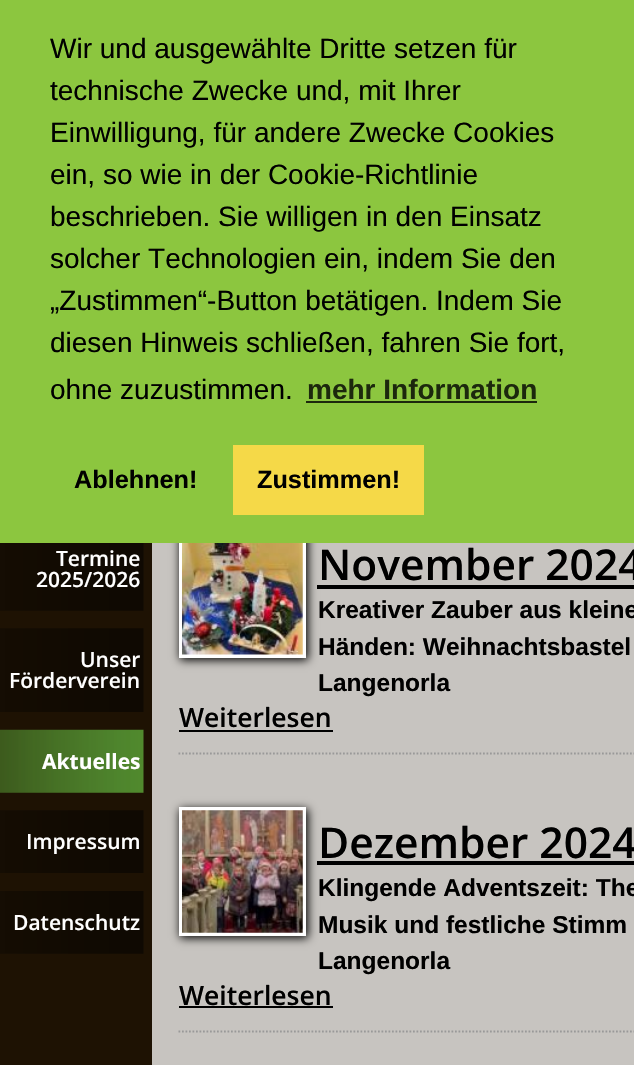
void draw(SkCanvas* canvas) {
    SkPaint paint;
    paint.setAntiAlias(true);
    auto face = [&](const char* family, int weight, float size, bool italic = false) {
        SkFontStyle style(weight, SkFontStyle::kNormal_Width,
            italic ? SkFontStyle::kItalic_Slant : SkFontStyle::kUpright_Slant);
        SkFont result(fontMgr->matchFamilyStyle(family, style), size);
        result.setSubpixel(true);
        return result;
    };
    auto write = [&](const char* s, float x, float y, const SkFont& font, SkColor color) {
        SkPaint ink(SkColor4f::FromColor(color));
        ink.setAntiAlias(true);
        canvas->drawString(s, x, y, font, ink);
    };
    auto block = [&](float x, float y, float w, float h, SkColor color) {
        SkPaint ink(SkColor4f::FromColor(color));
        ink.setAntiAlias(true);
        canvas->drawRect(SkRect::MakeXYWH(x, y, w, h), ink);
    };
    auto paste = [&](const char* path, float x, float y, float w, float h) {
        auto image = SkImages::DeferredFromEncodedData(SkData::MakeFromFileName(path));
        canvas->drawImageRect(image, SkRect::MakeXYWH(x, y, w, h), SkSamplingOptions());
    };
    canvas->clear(SkColorSetRGB(30, 18, 3));
    block(152, 543, 482, 522, SkColorSetRGB(199, 196, 192));
    paint.setColor(SK_ColorBLACK);
    paint.setMaskFilter(SkMaskFilter::MakeBlur(kNormal_SkBlurStyle, 4.5f));
    canvas->drawRect(SkRect::MakeXYWH(180, 532, 128, 128), paint);
    paint.setMaskFilter(nullptr);
    paint.setStyle(SkPaint::kStroke_Style);
    paint.setStrokeWidth(4);
    paint.setColor(SK_ColorWHITE);
    canvas->drawRect(SkRect::MakeXYWH(181, 532, 123, 124), paint);
    block(0, 0, 634, 543, SkColorSetRGB(140, 198, 63));
    auto kFont1 = face("Liberation Sans", 400, 28);
    write("Wir und ausgewählte Dritte setzen für", 50, 58, kFont1, SK_ColorBLACK);
    write("technische Zwecke und, mit Ihrer", 50, 100, kFont1, SK_ColorBLACK);
    write("Einwilligung, für andere Zwecke Cookies", 50, 142, kFont1, SK_ColorBLACK);
    write("ein, so wie in der Cookie-Richtlinie", 50, 184, kFont1, SK_ColorBLACK);
    write("beschrieben. Sie willigen in den Einsatz", 50, 226, kFont1, SK_ColorBLACK);
    write("solcher Technologien ein, indem Sie den", 50, 268, kFont1, SK_ColorBLACK);
    write("„Zustimmen“-Button betätigen. Indem Sie", 50, 310, kFont1, SK_ColorBLACK);
    write("diesen Hinweis schließen, fahren Sie fort,", 50, 352, kFont1, SK_ColorBLACK);
    write("ohne zuzustimmen.", 50, 399, kFont1, SK_ColorBLACK);
    auto kFont2 = face("Liberation Sans", 700, 28);
    write("mehr Information", 307, 399, kFont2, SkColorSetRGB(28, 40, 13));
    block(306, 401, 231, 2, SkColorSetRGB(28, 40, 13));
    auto kFont3 = face("Liberation Sans", 700, 25.25f);
    write("Ablehnen!", 74, 488, kFont3, SK_ColorBLACK);
    block(233, 445, 191, 70, SkColorSetRGB(245, 217, 72));
    write("Zustimmen!", 257, 488, kFont3, SK_ColorBLACK);
    paste("pic1.png", 0, 543, 144, 68);
    auto kFont4 = face("Open Sans", 600, 21);
    write("Termine", 56, 566, kFont4, SK_ColorWHITE);
    write("2025/2026", 36, 587, kFont4, SK_ColorWHITE);
    paste("pic2.png", 0, 628, 144, 84);
    write("Unser", 80, 667, kFont4, SK_ColorWHITE);
    write("Förderverein", 9, 688, kFont4, SK_ColorWHITE);
    paste("pic3.png", 0, 729, 144, 64);
    auto kFont5 = face("Open Sans", 700, 21);
    write("Aktuelles", 42, 769, kFont5, SK_ColorWHITE);
    paste("pic4.png", 0, 810, 144, 63);
    write("Impressum", 26, 849, kFont4, SK_ColorWHITE);
    paste("pic5.png", 0, 891, 144, 63);
    write("Datenschutz", 13, 930, kFont4, SK_ColorWHITE);
    paint.setStrokeWidth(1.8f);
    paint.setColor(SkColorSetRGB(153, 153, 153));
    paint.setPathEffect(SkDashPathEffect::Make({{1.75f, 1.75f}}, 0));
    canvas->drawPath(SkPathBuilder().moveTo(178.5f, 753.5f).lineTo(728, 753.5f).detach(), paint);
    paint.setPathEffect(nullptr);
    paste("pic6.png", 182, 543, 121, 112);
    auto kFont6 = face("Open Sans", 600, 42.5f);
    write("November 2024", 318, 580, kFont6, SK_ColorBLACK);
    block(317, 585, 317, 4, SK_ColorBLACK);
    auto kFont7 = face("Liberation Sans", 700, 24.5f);
    write("Kreativer Zauber aus kleine", 318, 618, kFont7, SK_ColorBLACK);
    write("Händen: Weihnachtsbastel", 318, 655, kFont7, SK_ColorBLACK);
    write("Langenorla", 318, 691, kFont7, SK_ColorBLACK);
    auto kFont8 = face("Open Sans", 600, 26.5f);
    write("Weiterlesen", 179, 727, kFont8, SK_ColorBLACK);
    block(179, 730, 154, 2, SK_ColorBLACK);
    paint.setPathEffect(SkDashPathEffect::Make({{1.75f, 1.75f}}, 0));
    canvas->drawPath(SkPathBuilder().moveTo(178.5f, 1031.5f).lineTo(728, 1031.5f).detach(), paint);
    paint.setPathEffect(nullptr);
    paint.setStyle(SkPaint::kFill_Style);
    paint.setColor(SK_ColorBLACK);
    paint.setMaskFilter(SkMaskFilter::MakeBlur(kNormal_SkBlurStyle, 4.5f));
    canvas->drawRect(SkRect::MakeXYWH(180, 809, 128, 129), paint);
    paint.setMaskFilter(nullptr);
    paint.setStyle(SkPaint::kStroke_Style);
    paint.setStrokeWidth(4);
    paint.setColor(SK_ColorWHITE);
    canvas->drawRect(SkRect::MakeXYWH(181, 809, 123, 125), paint);
    paste("pic7.png", 182, 810, 121, 123);
    write("Dezember 2024", 318, 858, kFont6, SK_ColorBLACK);
    block(317, 861, 317, 4, SK_ColorBLACK);
    write("Klingende Adventszeit: The", 318, 896, kFont7, SK_ColorBLACK);
    write("Musik und festliche Stimm", 318, 933, kFont7, SK_ColorBLACK);
    write("Langenorla", 318, 969, kFont7, SK_ColorBLACK);
    write("Weiterlesen", 179, 1005, kFont8, SK_ColorBLACK);
    block(179, 1006, 154, 2, SK_ColorBLACK);
}
